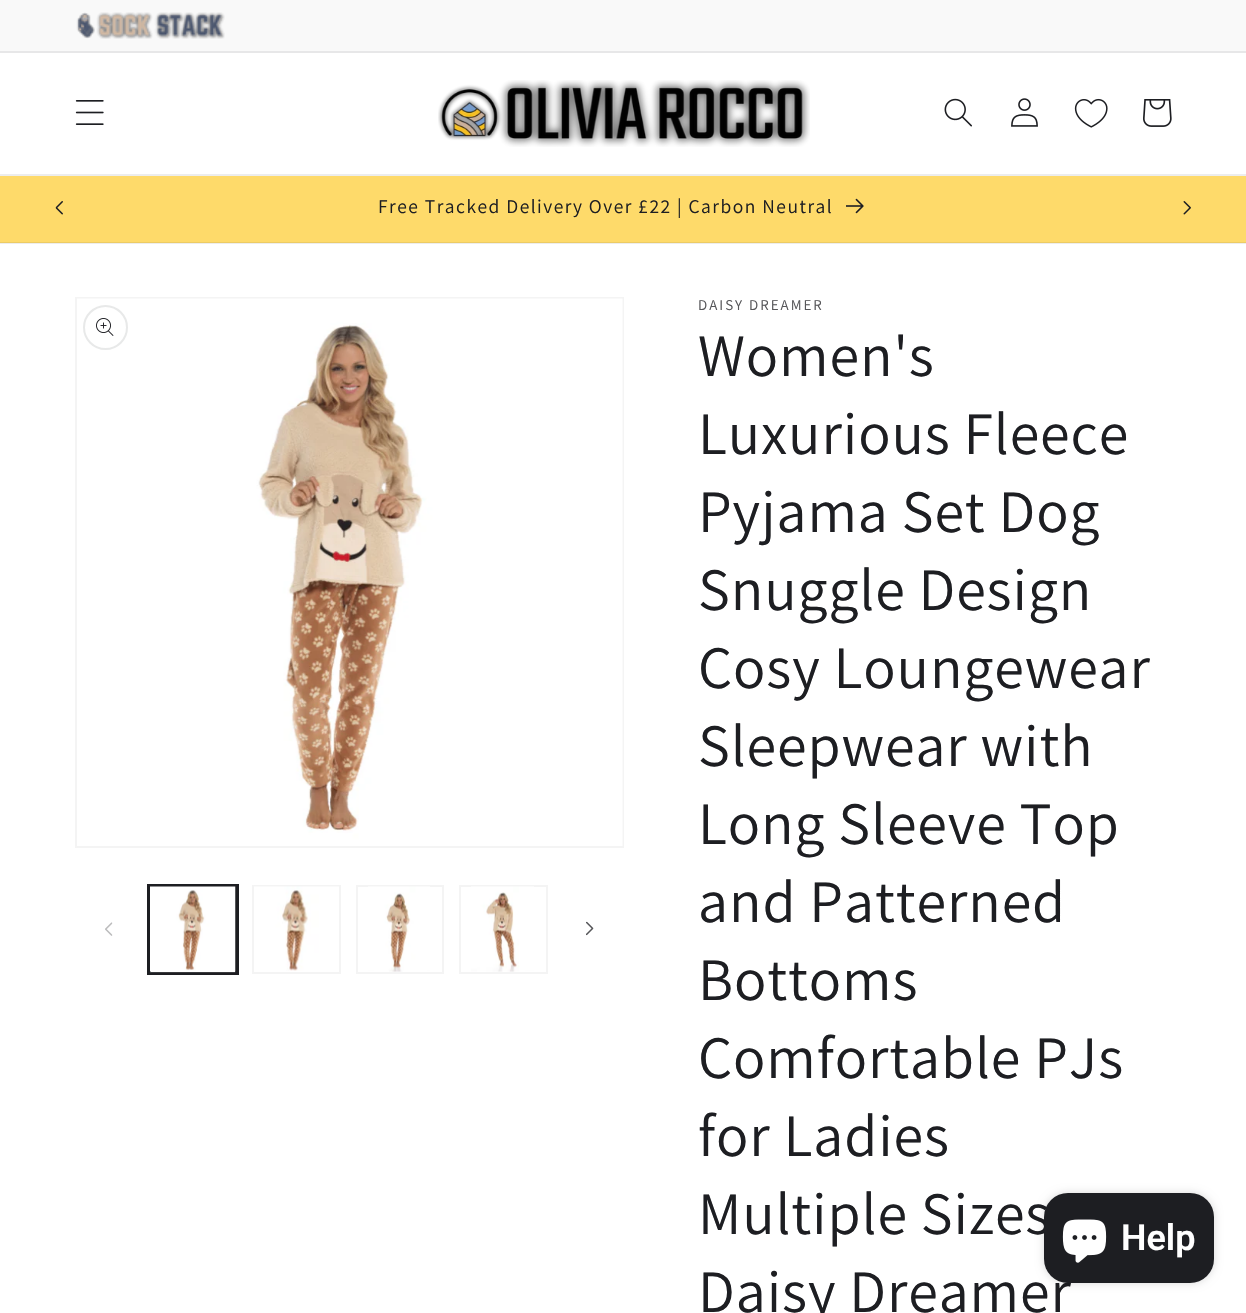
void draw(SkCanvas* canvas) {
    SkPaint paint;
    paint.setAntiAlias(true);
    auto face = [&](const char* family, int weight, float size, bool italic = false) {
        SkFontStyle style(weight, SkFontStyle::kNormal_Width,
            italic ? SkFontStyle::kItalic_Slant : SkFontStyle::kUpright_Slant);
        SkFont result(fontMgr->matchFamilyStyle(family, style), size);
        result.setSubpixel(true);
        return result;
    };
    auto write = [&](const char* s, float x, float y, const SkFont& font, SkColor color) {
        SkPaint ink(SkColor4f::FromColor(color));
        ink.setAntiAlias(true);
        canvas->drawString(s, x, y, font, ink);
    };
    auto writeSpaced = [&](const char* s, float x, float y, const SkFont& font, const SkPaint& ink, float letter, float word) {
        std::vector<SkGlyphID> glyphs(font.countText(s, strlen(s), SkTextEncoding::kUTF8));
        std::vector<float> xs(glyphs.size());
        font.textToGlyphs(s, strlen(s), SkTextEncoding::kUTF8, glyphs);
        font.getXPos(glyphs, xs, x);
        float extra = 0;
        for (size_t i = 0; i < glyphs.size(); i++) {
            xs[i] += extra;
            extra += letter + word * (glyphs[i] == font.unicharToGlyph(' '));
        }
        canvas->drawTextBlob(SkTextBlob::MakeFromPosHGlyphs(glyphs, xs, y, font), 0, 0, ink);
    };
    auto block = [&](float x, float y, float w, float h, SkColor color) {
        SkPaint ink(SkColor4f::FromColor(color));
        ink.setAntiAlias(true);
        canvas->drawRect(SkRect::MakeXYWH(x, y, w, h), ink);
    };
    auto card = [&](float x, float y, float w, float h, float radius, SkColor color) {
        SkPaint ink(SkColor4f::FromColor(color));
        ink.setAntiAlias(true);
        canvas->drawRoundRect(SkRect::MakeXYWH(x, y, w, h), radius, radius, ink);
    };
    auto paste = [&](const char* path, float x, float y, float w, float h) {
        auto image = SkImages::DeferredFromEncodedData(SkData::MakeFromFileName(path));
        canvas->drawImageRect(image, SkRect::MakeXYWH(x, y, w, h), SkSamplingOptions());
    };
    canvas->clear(SK_ColorWHITE);
    block(0, 243, 1246, 1, SkColorSetRGB(237, 237, 237));
    block(0, 0, 1246, 51, SkColorSetRGB(249, 249, 249));
    block(0, 51, 1246, 2, SkColorSetRGB(231, 231, 232));
    paste("pic1.png", 76, 12, 149, 27);
    block(0, 174, 1246, 2, SkColorSetRGB(237, 237, 237));
    paste("pic2.png", 75, 100, 29, 25);
    paste("pic3.png", 438, 80, 372, 67);
    paste("pic4.png", 944, 98, 28, 29);
    paste("pic5.png", 1011, 98, 27, 29);
    paste("pic6.png", 1074, 98, 34, 30);
    paste("pic7.png", 1143, 99, 29, 28);
    block(0, 176, 1246, 66, SkColorSetRGB(254, 218, 106));
    block(0, 242, 1246, 1, SkColorSetRGB(236, 203, 100));
    paste("pic8.png", 55, 201, 8, 14);
    auto kFont1 = face("Assistant", 400, 19.5f);
    paint.setColor(SkColorSetRGB(29, 30, 34));
    writeSpaced("Free Tracked Delivery Over £22 | Carbon Neutral", 378, 213, kFont1, paint, 1.5f, 0);
    paste("pic9.png", 846, 198, 18, 16);
    paste("pic10.png", 1183, 201, 8, 14);
    paint.setStyle(SkPaint::kStroke_Style);
    paint.setStrokeWidth(2);
    paint.setColor(SkColorSetRGB(244, 244, 244));
    canvas->drawRect(SkRect::MakeXYWH(76, 298, 547, 549), paint);
    paste("pic11.png", 77, 298, 546, 548);
    paint.setColor(SkColorSetRGB(232, 233, 233));
    canvas->drawCircle(105.5f, 327.5f, 21.5f, paint);
    paste("pic12.png", 96, 318, 18, 18);
    paste("pic13.png", 105, 922, 8, 14);
    paint.setColor(SkColorSetRGB(29, 30, 34));
    canvas->drawRect(SkRect::MakeXYWH(148, 885, 90, 89), paint);
    canvas->drawRect(SkRect::MakeXYWH(150, 886, 86, 87), paint);
    paste("pic14.png", 150, 886, 86, 87);
    paint.setColor(SkColorSetRGB(244, 244, 244));
    canvas->drawRect(SkRect::MakeXYWH(253, 886, 87, 87), paint);
    paste("pic15.png", 254, 886, 85, 85);
    canvas->drawRect(SkRect::MakeXYWH(357, 886, 86, 87), paint);
    paste("pic16.png", 368, 886, 62, 86);
    canvas->drawRect(SkRect::MakeXYWH(460, 886, 87, 87), paint);
    paste("pic17.png", 471, 886, 63, 86);
    paste("pic18.png", 586, 921, 8, 15);
    auto kFont2 = face("Assistant", 400, 15);
    paint.setStyle(SkPaint::kFill_Style);
    paint.setColor(SkColorSetRGB(86, 86, 89));
    writeSpaced("DAISY DREAMER", 698, 310, kFont2, paint, 2, 0);
    auto kFont3 = face("Assistant", 400, 60);
    paint.setColor(SkColorSetRGB(29, 30, 34));
    writeSpaced("Women's", 698, 376, kFont3, paint, 0.9f, 0);
    writeSpaced("Luxurious Fleece", 698, 454, kFont3, paint, 0.9f, 0);
    writeSpaced("Pyjama Set Dog", 698, 532, kFont3, paint, 0.9f, 0);
    writeSpaced("Snuggle Design", 698, 610, kFont3, paint, 0.9f, 0);
    writeSpaced("Cosy Loungewear", 698, 688, kFont3, paint, 0.9f, 0);
    writeSpaced("Sleepwear with", 698, 766, kFont3, paint, 0.9f, 0);
    writeSpaced("Long Sleeve Top", 698, 844, kFont3, paint, 0.9f, 0);
    writeSpaced("and Patterned", 698, 922, kFont3, paint, 0.9f, 0);
    writeSpaced("Bottoms", 698, 1000, kFont3, paint, 0.9f, 0);
    writeSpaced("Comfortable PJs", 698, 1078, kFont3, paint, 0.9f, 0);
    writeSpaced("for Ladies", 698, 1156, kFont3, paint, 0.9f, 0);
    writeSpaced("Multiple Sizes", 698, 1234, kFont3, paint, 0.9f, 0);
    writeSpaced("Daisy Dreamer", 698, 1312, kFont3, paint, 0.9f, 0);
    paint.setColor(SkColorSetARGB(38, 0, 0, 0));
    paint.setMaskFilter(SkMaskFilter::MakeBlur(kNormal_SkBlurStyle, 4));
    canvas->drawRoundRect(SkRect::MakeXYWH(1044, 1193, 170, 90), 24, 24, paint);
    paint.setMaskFilter(nullptr);
    card(1044, 1193, 170, 90, 24, SkColorSetRGB(29, 30, 34));
    paste("pic19.png", 1062, 1219, 45, 44);
    auto kFont4 = face("Roboto", 600, 36);
    write("Help", 1121, 1250, kFont4, SK_ColorWHITE);
}
